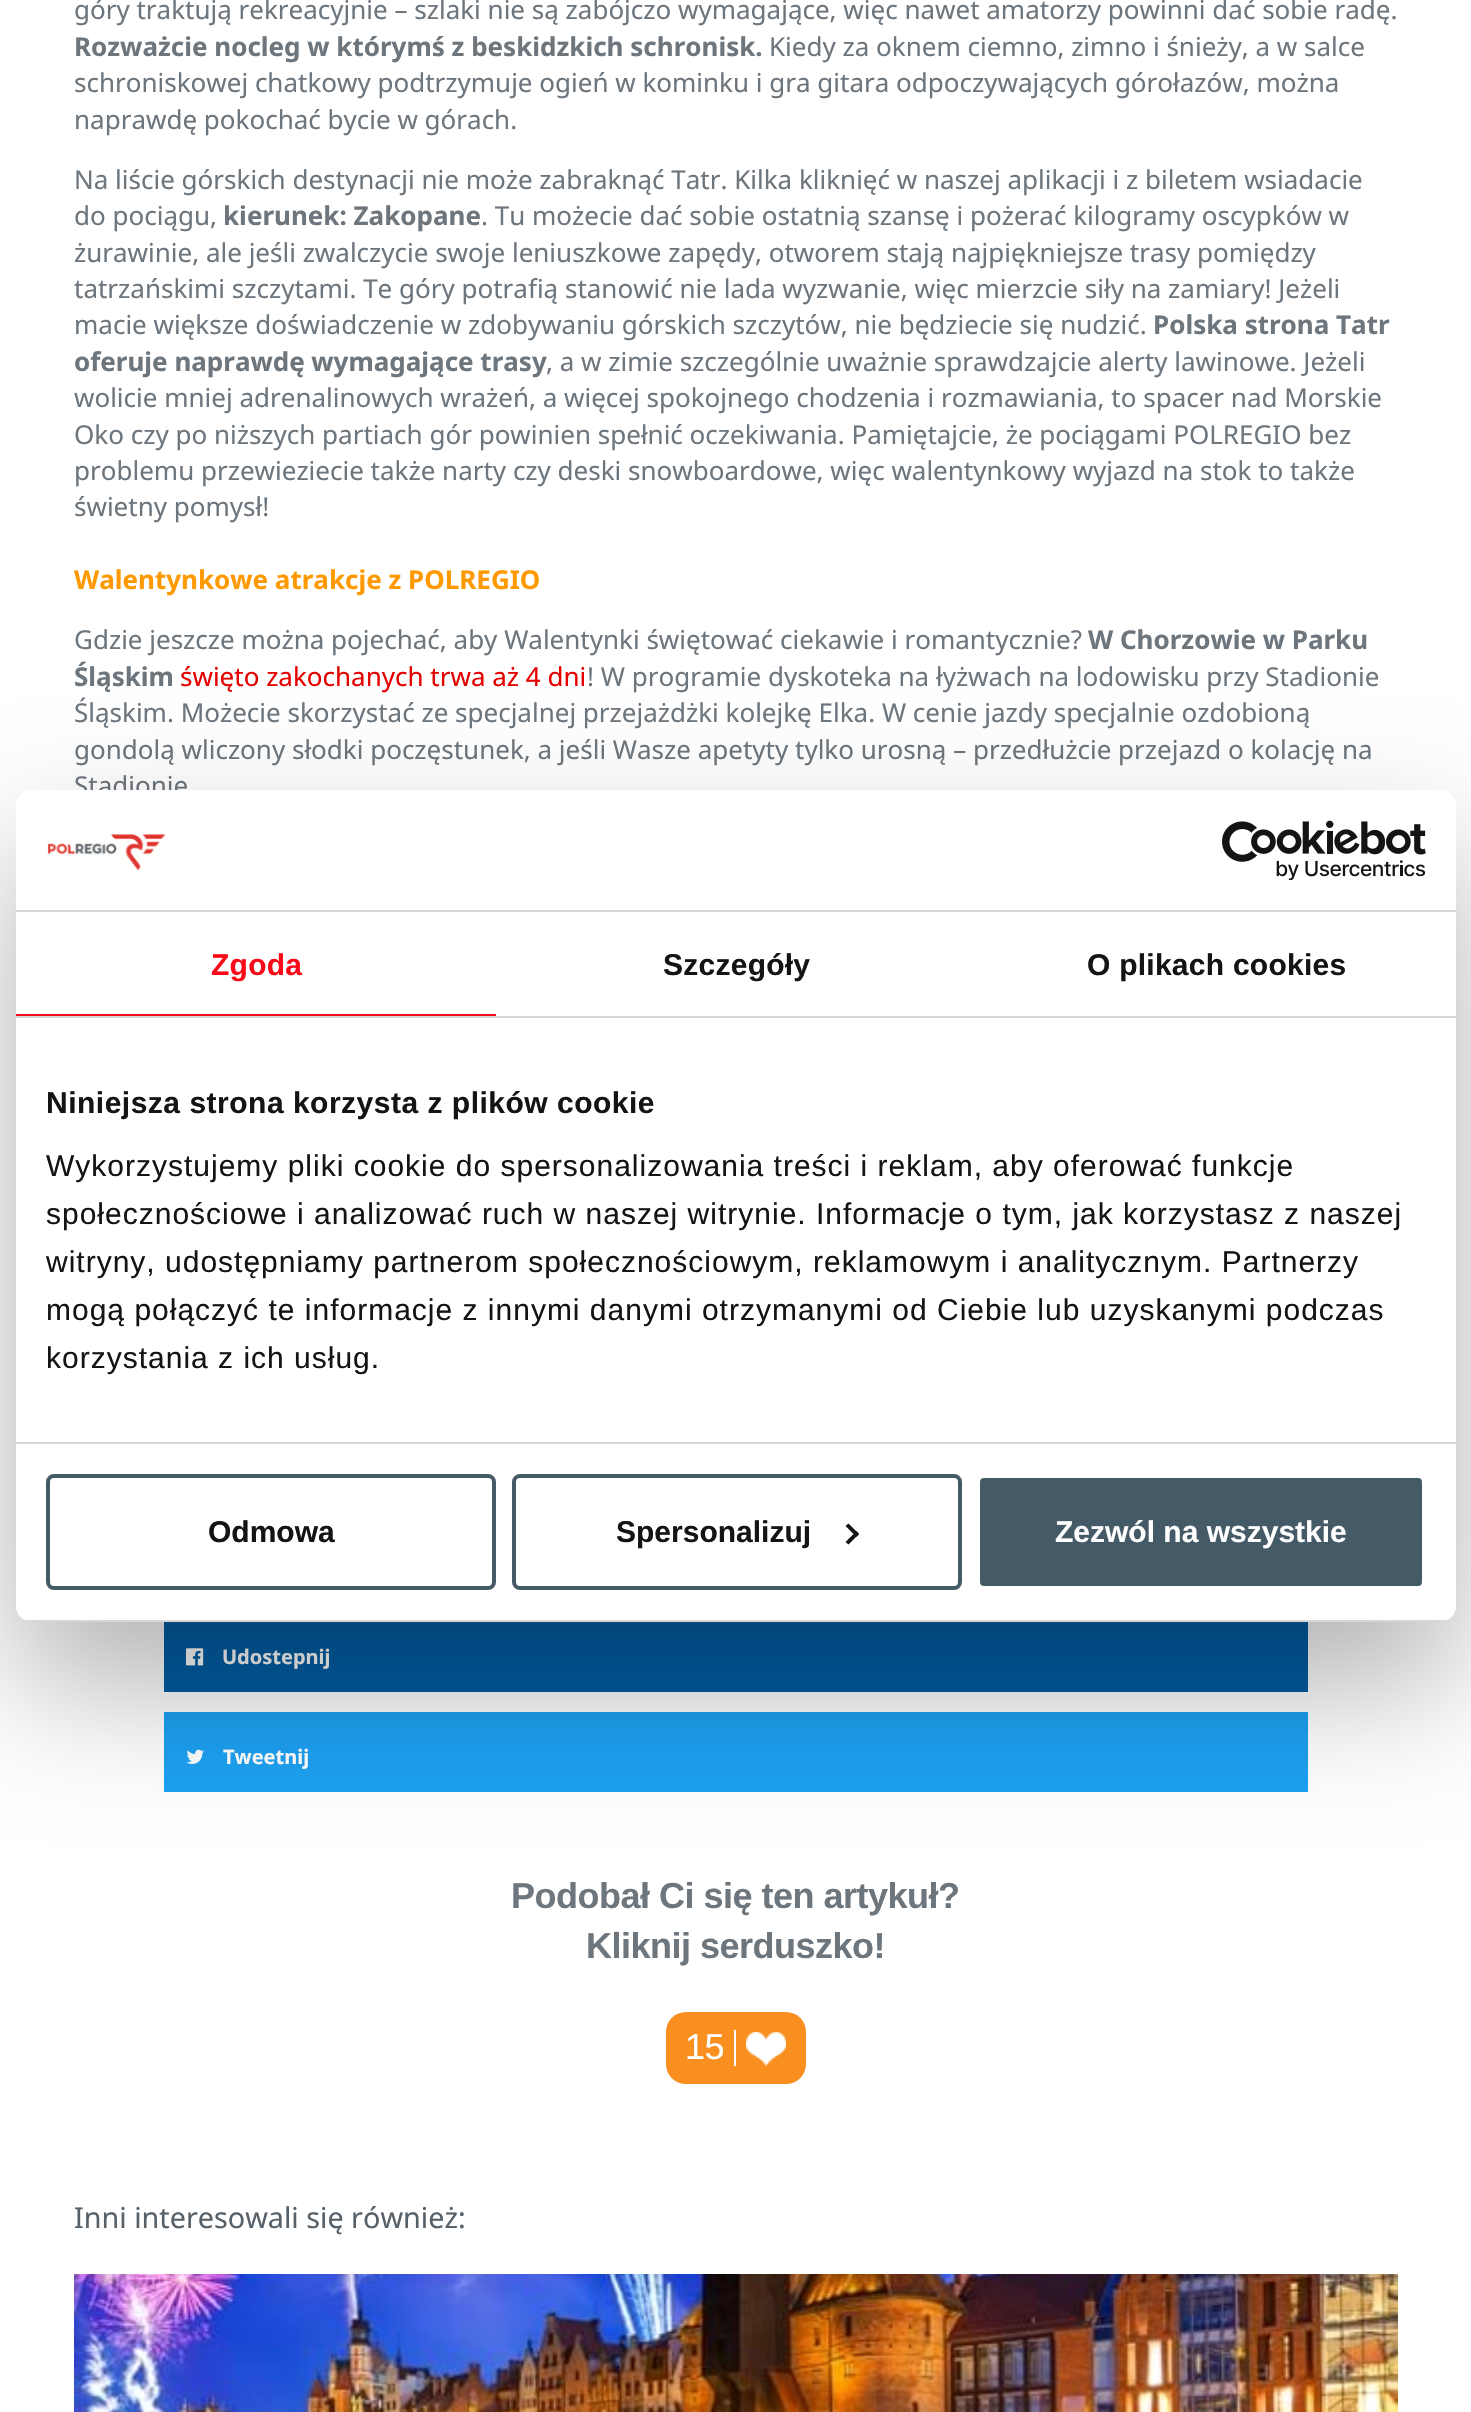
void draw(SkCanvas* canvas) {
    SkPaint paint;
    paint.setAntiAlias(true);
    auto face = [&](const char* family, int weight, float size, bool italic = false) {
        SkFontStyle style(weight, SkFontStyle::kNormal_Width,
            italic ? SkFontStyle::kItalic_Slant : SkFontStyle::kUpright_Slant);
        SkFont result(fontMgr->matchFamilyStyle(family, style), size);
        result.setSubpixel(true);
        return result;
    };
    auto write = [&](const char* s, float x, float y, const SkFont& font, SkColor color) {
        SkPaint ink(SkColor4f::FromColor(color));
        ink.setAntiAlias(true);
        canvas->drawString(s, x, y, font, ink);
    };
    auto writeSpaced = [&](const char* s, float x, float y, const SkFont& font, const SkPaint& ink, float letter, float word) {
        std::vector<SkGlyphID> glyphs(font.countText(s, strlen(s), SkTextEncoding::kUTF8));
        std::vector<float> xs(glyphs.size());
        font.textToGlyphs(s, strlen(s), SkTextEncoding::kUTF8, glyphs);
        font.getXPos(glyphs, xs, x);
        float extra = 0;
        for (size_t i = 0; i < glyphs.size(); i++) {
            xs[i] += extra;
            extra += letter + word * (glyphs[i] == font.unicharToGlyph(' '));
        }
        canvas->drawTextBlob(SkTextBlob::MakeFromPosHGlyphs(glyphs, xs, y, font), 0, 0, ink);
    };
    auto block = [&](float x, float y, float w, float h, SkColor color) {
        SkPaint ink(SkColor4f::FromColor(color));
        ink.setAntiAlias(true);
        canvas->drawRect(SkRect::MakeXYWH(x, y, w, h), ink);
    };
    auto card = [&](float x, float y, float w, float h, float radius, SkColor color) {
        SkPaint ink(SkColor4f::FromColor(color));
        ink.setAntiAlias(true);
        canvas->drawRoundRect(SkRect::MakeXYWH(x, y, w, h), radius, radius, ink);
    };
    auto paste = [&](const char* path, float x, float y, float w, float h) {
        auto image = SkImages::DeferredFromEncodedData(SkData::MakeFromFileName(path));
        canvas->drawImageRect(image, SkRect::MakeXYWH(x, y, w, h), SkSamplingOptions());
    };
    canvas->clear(SK_ColorWHITE);
    auto kFont1 = face("Noto Sans", 400, 26);
    write("góry traktują rekreacyjnie – szlaki nie są zabójczo wymagające, więc nawet amatorzy powinni dać sobie radę.", 74, 19, kFont1, SkColorSetRGB(109, 117, 125));
    auto kFont2 = face("Noto Sans", 700, 26);
    write("Rozważcie nocleg w którymś z beskidzkich schronisk.", 74, 56, kFont2, SkColorSetRGB(109, 117, 125));
    write("Kiedy za oknem ciemno, zimno i śnieży, a w salce", 769, 56, kFont1, SkColorSetRGB(109, 117, 125));
    write("schroniskowej chatkowy podtrzymuje ogień w kominku i gra gitara odpoczywających górołazów, można", 74, 92, kFont1, SkColorSetRGB(109, 117, 125));
    write("naprawdę pokochać bycie w górach.", 74, 129, kFont1, SkColorSetRGB(109, 117, 125));
    write("Na liście górskich destynacji nie może zabraknąć Tatr. Kilka kliknięć w naszej aplikacji i z biletem wsiadacie", 74, 189, kFont1, SkColorSetRGB(109, 117, 125));
    write("do pociągu,", 74, 225, kFont1, SkColorSetRGB(109, 117, 125));
    write("kierunek: Zakopane", 223, 225, kFont2, SkColorSetRGB(109, 117, 125));
    write(". Tu możecie dać sobie ostatnią szansę i pożerać kilogramy oscypków w", 481, 225, kFont1, SkColorSetRGB(109, 117, 125));
    write("żurawinie, ale jeśli zwalczycie swoje leniuszkowe zapędy, otworem stają najpiękniejsze trasy pomiędzy", 74, 262, kFont1, SkColorSetRGB(109, 117, 125));
    write("tatrzańskimi szczytami. Te góry potrafią stanowić nie lada wyzwanie, więc mierzcie siły na zamiary! Jeżeli", 74, 298, kFont1, SkColorSetRGB(109, 117, 125));
    write("macie większe doświadczenie w zdobywaniu górskich szczytów, nie będziecie się nudzić.", 74, 334, kFont1, SkColorSetRGB(109, 117, 125));
    write("Polska strona Tatr", 1153, 334, kFont2, SkColorSetRGB(109, 117, 125));
    write("oferuje naprawdę wymagające trasy", 74, 371, kFont2, SkColorSetRGB(109, 117, 125));
    write(", a w zimie szczególnie uważnie sprawdzajcie alerty lawinowe. Jeżeli", 546, 371, kFont1, SkColorSetRGB(109, 117, 125));
    write("wolicie mniej adrenalinowych wrażeń, a więcej spokojnego chodzenia i rozmawiania, to spacer nad Morskie", 74, 407, kFont1, SkColorSetRGB(109, 117, 125));
    write("Oko czy po niższych partiach gór powinien spełnić oczekiwania. Pamiętajcie, że pociągami POLREGIO bez", 74, 444, kFont1, SkColorSetRGB(109, 117, 125));
    write("problemu przewieziecie także narty czy deski snowboardowe, więc walentynkowy wyjazd na stok to także", 74, 480, kFont1, SkColorSetRGB(109, 117, 125));
    write("świetny pomysł!", 74, 516, kFont1, SkColorSetRGB(109, 117, 125));
    write("Walentynkowe atrakcje z POLREGIO", 74, 589, kFont2, SkColorSetRGB(255, 153, 0));
    write("Gdzie jeszcze można pojechać, aby Walentynki świętować ciekawie i romantycznie?", 74, 649, kFont1, SkColorSetRGB(109, 117, 125));
    write("W Chorzowie w Parku", 1088, 649, kFont2, SkColorSetRGB(109, 117, 125));
    write("Śląskim", 74, 686, kFont2, SkColorSetRGB(109, 117, 125));
    write("święto zakochanych trwa aż 4 dni", 180, 686, kFont1, SkColorSetRGB(229, 0, 0));
    write("! W programie dyskoteka na łyżwach na lodowisku przy Stadionie", 587, 686, kFont1, SkColorSetRGB(109, 117, 125));
    write("Śląskim. Możecie skorzystać ze specjalnej przejażdżki kolejkę Elka. W cenie jazdy specjalnie ozdobioną", 74, 722, kFont1, SkColorSetRGB(109, 117, 125));
    write("gondolą wliczony słodki poczęstunek, a jeśli Wasze apetyty tylko urosną – przedłużcie przejazd o kolację na", 74, 759, kFont1, SkColorSetRGB(109, 117, 125));
    write("Stadionie", 74, 795, kFont1, SkColorSetRGB(109, 117, 125));
    block(164, 1622, 1144, 70, SkColorSetRGB(1, 94, 165));
    paste("pic1.png", 186, 1648, 18, 18);
    auto kFont3 = face("Noto Sans", 700, 20);
    write("Udostepnij", 222, 1664, kFont3, SK_ColorWHITE);
    block(164, 1712, 1144, 80, SkColorSetRGB(29, 161, 242));
    paste("pic2.png", 186, 1749, 18, 15);
    write("Tweetnij", 223, 1764, kFont3, SK_ColorWHITE);
    auto kFont4 = face("Liberation Sans", 700, 36);
    paint.setColor(SkColorSetRGB(109, 117, 125));
    writeSpaced("Podobał Ci się ten artykuł?", 511, 1908, kFont4, paint, -0.5f, 0);
    writeSpaced("Kliknij serduszko!", 586, 1958, kFont4, paint, -0.5f, 0);
    card(666, 2012, 140, 72, 20, SkColorSetRGB(248, 143, 30));
    auto kFont5 = face("Liberation Sans", 400, 36);
    paint.setColor(SK_ColorWHITE);
    writeSpaced("15", 685, 2059, kFont5, paint, -0.5f, 0);
    block(734, 2030, 2, 36, SK_ColorWHITE);
    paste("pic3.png", 746, 2032, 40, 34);
    auto kFont6 = face("Noto Sans", 400, 28.75f);
    write("Inni interesowali się również:", 74, 2228, kFont6, SkColorSetRGB(86, 96, 105));
    paste("pic4.png", 74, 2274, 1324, 138);
    paint.setColor(SkColorSetARGB(77, 0, 0, 0));
    paint.setMaskFilter(SkMaskFilter::MakeBlur(kNormal_SkBlurStyle, 68));
    canvas->drawRoundRect(SkRect::MakeXYWH(16, 854, 1440, 832), 16, 16, paint);
    paint.setMaskFilter(nullptr);
    card(16, 790, 1440, 832, 16, SK_ColorWHITE);
    block(16, 910, 1440, 2, SkColorSetRGB(214, 214, 214));
    paste("pic5.png", 47, 834, 119, 37);
    paste("pic6.png", 1222, 820, 204, 60);
    block(16, 1016, 1440, 2, SkColorSetRGB(214, 214, 214));
    block(16, 1014, 480, 2, SkColorSetRGB(250, 9, 24));
    auto kFont7 = face("Liberation Sans", 700, 30);
    paint.setColor(SkColorSetRGB(250, 9, 24));
    writeSpaced("Zgoda", 211, 975, kFont7, paint, 0.25f, 0);
    paint.setColor(SkColorSetRGB(20, 20, 20));
    writeSpaced("Szczegóły", 663, 975, kFont7, paint, 0.25f, 0);
    writeSpaced("O plikach cookies", 1087, 975, kFont7, paint, 0.25f, 0);
    block(16, 1442, 1440, 2, SkColorSetRGB(214, 214, 214));
    writeSpaced("Niniejsza strona korzysta z plików cookie", 46, 1113, kFont7, paint, 0.5f, 0);
    auto kFont8 = face("Liberation Sans", 400, 30);
    writeSpaced("Wykorzystujemy pliki cookie do spersonalizowania treści i reklam, aby oferować funkcje", 46, 1176, kFont8, paint, 1, 0);
    writeSpaced("społecznościowe i analizować ruch w naszej witrynie. Informacje o tym, jak korzystasz z naszej", 46, 1224, kFont8, paint, 1, 0);
    writeSpaced("witryny, udostępniamy partnerom społecznościowym, reklamowym i analitycznym. Partnerzy", 46, 1272, kFont8, paint, 1, 0);
    writeSpaced("mogą połączyć te informacje z innymi danymi otrzymanymi od Ciebie lub uzyskanymi podczas", 46, 1320, kFont8, paint, 1, 0);
    writeSpaced("korzystania z ich usług.", 46, 1368, kFont8, paint, 1, 0);
    canvas->save();
    canvas->clipPath(SkPathBuilder().moveTo(32, 790).lineTo(1440, 790).cubicTo(1449, 790, 1456, 797, 1456, 806).lineTo(1456, 1606).cubicTo(1456, 1615, 1449, 1622, 1440, 1622).lineTo(32, 1622).cubicTo(23, 1622, 16, 1615, 16, 1606).lineTo(16, 806).cubicTo(16, 797, 23, 790, 32, 790).close().detach(), true);
    block(16, 1620, 1440, 2, SkColorSetRGB(214, 214, 214));
    canvas->restore();
    paint.setStyle(SkPaint::kStroke_Style);
    paint.setStrokeWidth(4);
    paint.setColor(SkColorSetRGB(68, 91, 103));
    canvas->drawRoundRect(SkRect::MakeXYWH(48, 1476, 446, 112), 6, 6, paint);
    write("Odmowa", 208, 1542, kFont7, SkColorSetRGB(20, 20, 20));
    canvas->drawRoundRect(SkRect::MakeXYWH(514, 1476, 446, 112), 6, 6, paint);
    write("Spersonalizuj", 616, 1542, kFont7, SkColorSetRGB(20, 20, 20));
    paint.setStyle(SkPaint::kFill_Style);
    paint.setColor(SkColorSetRGB(20, 20, 20));
    canvas->drawPath(SkPathBuilder().moveTo(848.5f, 1523.5f).lineTo(859, 1534).lineTo(856.5f, 1537).lineTo(845.5f, 1526).close().detach(), paint);
    canvas->drawPath(SkPathBuilder().moveTo(856.5f, 1531).lineTo(859, 1534).lineTo(848.5f, 1544.5f).lineTo(845.5f, 1542).close().detach(), paint);
    paint.setColor(SkColorSetRGB(68, 91, 103));
    canvas->drawRoundRect(SkRect::MakeXYWH(978, 1476, 446, 112), 6, 6, paint);
    paint.setStyle(SkPaint::kStroke_Style);
    paint.setColor(SK_ColorWHITE);
    canvas->drawRoundRect(SkRect::MakeXYWH(978, 1476, 446, 112), 6, 6, paint);
    write("Zezwól na wszystkie", 1055, 1542, kFont7, SK_ColorWHITE);
}
